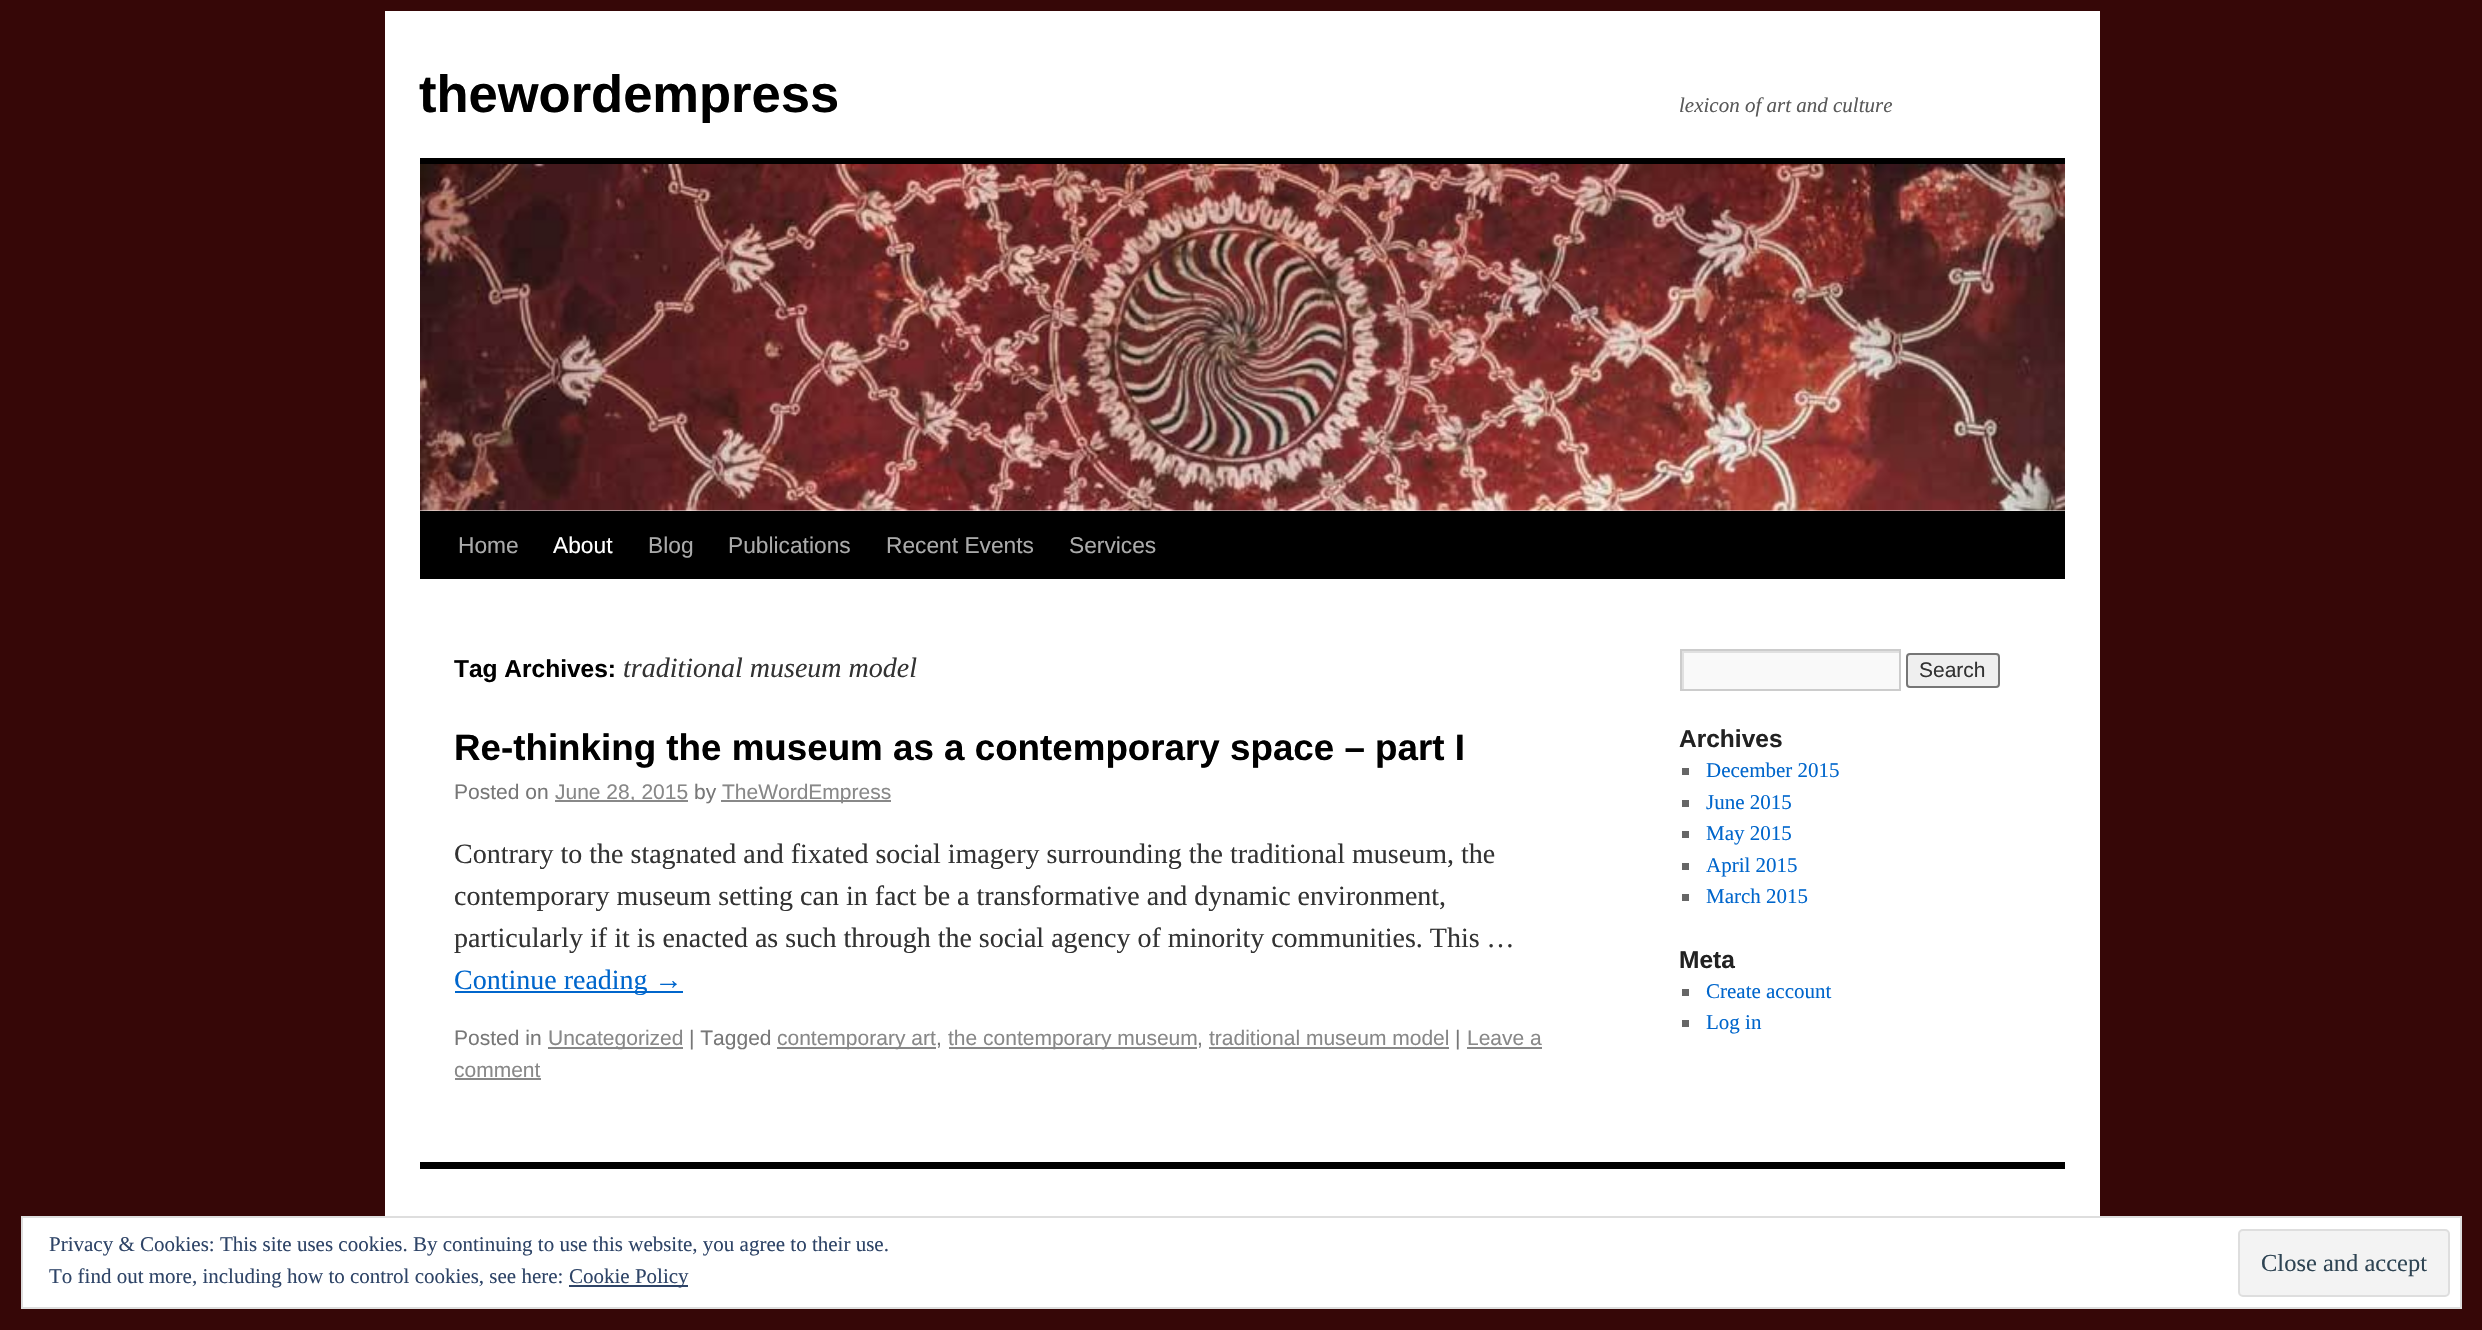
void draw(SkCanvas* canvas) {
    SkPaint paint;
    paint.setAntiAlias(true);
    auto face = [&](const char* family, int weight, float size, bool italic = false) {
        SkFontStyle style(weight, SkFontStyle::kNormal_Width,
            italic ? SkFontStyle::kItalic_Slant : SkFontStyle::kUpright_Slant);
        SkFont result(fontMgr->matchFamilyStyle(family, style), size);
        result.setSubpixel(true);
        return result;
    };
    auto write = [&](const char* s, float x, float y, const SkFont& font, SkColor color) {
        SkPaint ink(SkColor4f::FromColor(color));
        ink.setAntiAlias(true);
        canvas->drawString(s, x, y, font, ink);
    };
    auto block = [&](float x, float y, float w, float h, SkColor color) {
        SkPaint ink(SkColor4f::FromColor(color));
        ink.setAntiAlias(true);
        canvas->drawRect(SkRect::MakeXYWH(x, y, w, h), ink);
    };
    auto paste = [&](const char* path, float x, float y, float w, float h) {
        auto image = SkImages::DeferredFromEncodedData(SkData::MakeFromFileName(path));
        canvas->drawImageRect(image, SkRect::MakeXYWH(x, y, w, h), SkSamplingOptions());
    };
    canvas->clear(SkColorSetRGB(54, 7, 7));
    block(385, 11, 1715, 1205, SK_ColorWHITE);
    auto kFont1 = face("Liberation Sans", 700, 52.5f);
    write("thewordempress", 419, 112, kFont1, SK_ColorBLACK);
    auto kFont2 = face("Liberation Serif", 400, 21, true);
    write("lexicon of art and culture", 1679, 112, kFont2, SkColorSetRGB(89, 89, 89));
    block(420, 158, 1645, 6, SK_ColorBLACK);
    block(420, 511, 1645, 68, SK_ColorBLACK);
    paste("pic1.png", 420, 164, 1645, 347);
    auto kFont3 = face("Liberation Sans", 400, 22.75f);
    write("Home", 458, 553, kFont3, SkColorSetRGB(170, 170, 170));
    write("About", 553, 553, kFont3, SK_ColorWHITE);
    write("Blog", 648, 553, kFont3, SkColorSetRGB(170, 170, 170));
    write("Publications", 728, 553, kFont3, SkColorSetRGB(170, 170, 170));
    write("Recent Events", 886, 553, kFont3, SkColorSetRGB(170, 170, 170));
    write("Services", 1069, 553, kFont3, SkColorSetRGB(170, 170, 170));
    auto kFont4 = face("Liberation Sans", 700, 24.5f);
    write("Tag Archives:", 454, 677, kFont4, SK_ColorBLACK);
    auto kFont5 = face("Liberation Serif", 400, 28, true);
    write("traditional museum model", 623, 677, kFont5, SkColorSetRGB(51, 51, 51));
    auto kFont6 = face("Liberation Sans", 700, 36.75f);
    write("Re-thinking the museum as a contemporary space – part I", 454, 760, kFont6, SK_ColorBLACK);
    auto kFont7 = face("Liberation Sans", 400, 21);
    write("Posted on", 454, 799, kFont7, SkColorSetRGB(119, 119, 119));
    block(555, 800, 133, 2, SkColorSetRGB(136, 136, 136));
    write("June 28, 2015", 555, 799, kFont7, SkColorSetRGB(136, 136, 136));
    write("by", 694, 799, kFont7, SkColorSetRGB(119, 119, 119));
    block(721, 800, 170, 2, SkColorSetRGB(136, 136, 136));
    write("TheWordEmpress", 722, 799, kFont7, SkColorSetRGB(136, 136, 136));
    auto kFont8 = face("Liberation Serif", 400, 28);
    write("Contrary to the stagnated and fixated social imagery surrounding the traditional museum, the", 454, 863, kFont8, SkColorSetRGB(51, 51, 51));
    write("contemporary museum setting can in fact be a transformative and dynamic environment,", 454, 905, kFont8, SkColorSetRGB(51, 51, 51));
    write("particularly if it is enacted as such through the social agency of minority communities. This …", 454, 947, kFont8, SkColorSetRGB(51, 51, 51));
    block(455, 991, 228, 2, SkColorSetRGB(0, 102, 204));
    write("Continue reading →", 454, 989, kFont8, SkColorSetRGB(0, 102, 204));
    write("Posted in", 454, 1045, kFont7, SkColorSetRGB(119, 119, 119));
    block(548, 1047, 135, 2, SkColorSetRGB(136, 136, 136));
    write("Uncategorized", 548, 1045, kFont7, SkColorSetRGB(136, 136, 136));
    write("| Tagged", 689, 1045, kFont7, SkColorSetRGB(119, 119, 119));
    block(777, 1047, 159, 2, SkColorSetRGB(136, 136, 136));
    write("contemporary art", 777, 1045, kFont7, SkColorSetRGB(136, 136, 136));
    write(",", 936, 1045, kFont7, SkColorSetRGB(119, 119, 119));
    block(949, 1047, 248, 2, SkColorSetRGB(136, 136, 136));
    write("the contemporary museum", 948, 1045, kFont7, SkColorSetRGB(136, 136, 136));
    write(",", 1197, 1045, kFont7, SkColorSetRGB(119, 119, 119));
    block(1209, 1047, 240, 2, SkColorSetRGB(136, 136, 136));
    write("traditional museum model", 1209, 1045, kFont7, SkColorSetRGB(136, 136, 136));
    write("|", 1455, 1045, kFont7, SkColorSetRGB(119, 119, 119));
    write("Leave a", 1467, 1045, kFont7, SkColorSetRGB(136, 136, 136));
    block(1467, 1047, 75, 2, SkColorSetRGB(136, 136, 136));
    write("comment", 454, 1077, kFont7, SkColorSetRGB(136, 136, 136));
    block(455, 1078, 86, 2, SkColorSetRGB(136, 136, 136));
    block(1684, 653, 215, 36, SkColorSetRGB(249, 249, 249));
    canvas->save();
    canvas->clipRect(SkRect::MakeXYWH(1682, 651, 217, 39));
    paint.setColor(SkColorSetRGB(224, 224, 224));
    canvas->drawPath(SkPathBuilder(SkPathFillType::kEvenOdd).moveTo(1508, 478).lineTo(2072, 478).lineTo(2072, 863).lineTo(1508, 863).close().moveTo(1684, 653).lineTo(1900, 653).lineTo(1900, 691).lineTo(1684, 691).close().detach(), paint);
    canvas->restore();
    paint.setStyle(SkPaint::kStroke_Style);
    paint.setStrokeWidth(2);
    paint.setColor(SkColorSetRGB(204, 204, 204));
    canvas->drawRect(SkRect::MakeXYWH(1681, 650, 219, 40), paint);
    paint.setStyle(SkPaint::kFill_Style);
    paint.setColor(SkColorSetRGB(239, 239, 239));
    canvas->drawRoundRect(SkRect::MakeXYWH(1907, 654, 92, 33), 3, 3, paint);
    paint.setStyle(SkPaint::kStroke_Style);
    paint.setColor(SkColorSetRGB(118, 118, 118));
    canvas->drawRoundRect(SkRect::MakeXYWH(1907, 654, 92, 33), 3, 3, paint);
    write("Search", 1919, 677, kFont7, SkColorSetRGB(51, 51, 51));
    write("Archives", 1679, 747, kFont4, SkColorSetRGB(34, 34, 34));
    block(1682, 768, 7, 7, SkColorSetRGB(102, 102, 102));
    auto kFont9 = face("Liberation Serif", 400, 21);
    write("December 2015", 1706, 777, kFont9, SkColorSetRGB(0, 102, 204));
    block(1682, 800, 7, 7, SkColorSetRGB(102, 102, 102));
    write("June 2015", 1706, 809, kFont9, SkColorSetRGB(0, 102, 204));
    block(1682, 831, 7, 7, SkColorSetRGB(102, 102, 102));
    write("May 2015", 1706, 840, kFont9, SkColorSetRGB(0, 102, 204));
    block(1682, 863, 7, 7, SkColorSetRGB(102, 102, 102));
    write("April 2015", 1706, 872, kFont9, SkColorSetRGB(0, 102, 204));
    block(1682, 894, 7, 7, SkColorSetRGB(102, 102, 102));
    write("March 2015", 1706, 903, kFont9, SkColorSetRGB(0, 102, 204));
    write("Meta", 1679, 968, kFont4, SkColorSetRGB(34, 34, 34));
    block(1682, 989, 7, 7, SkColorSetRGB(102, 102, 102));
    write("Create account", 1706, 998, kFont9, SkColorSetRGB(0, 102, 204));
    block(1682, 1020, 7, 7, SkColorSetRGB(102, 102, 102));
    write("Log in", 1706, 1029, kFont9, SkColorSetRGB(0, 102, 204));
    block(420, 1162, 1645, 7, SK_ColorBLACK);
    paint.setStyle(SkPaint::kFill_Style);
    paint.setColor(SK_ColorWHITE);
    canvas->drawRect(SkRect::MakeXYWH(22, 1217, 2439, 91), paint);
    paint.setStyle(SkPaint::kStroke_Style);
    paint.setColor(SkColorSetRGB(222, 222, 222));
    canvas->drawRect(SkRect::MakeXYWH(22, 1217, 2439, 91), paint);
    write("Privacy & Cookies: This site uses cookies. By continuing to use this website, you agree to their use.", 49, 1251, kFont9, SkColorSetRGB(46, 68, 103));
    write("To find out more, including how to control cookies, see here:", 49, 1283, kFont9, SkColorSetRGB(46, 68, 103));
    block(569, 1285, 119, 2, SkColorSetRGB(46, 68, 103));
    write("Cookie Policy", 569, 1283, kFont9, SkColorSetRGB(46, 68, 103));
    paint.setStyle(SkPaint::kFill_Style);
    paint.setColor(SkColorSetRGB(243, 243, 243));
    canvas->drawRoundRect(SkRect::MakeXYWH(2239, 1230, 210, 66), 4, 4, paint);
    paint.setStyle(SkPaint::kStroke_Style);
    paint.setColor(SkColorSetRGB(222, 222, 222));
    canvas->drawRoundRect(SkRect::MakeXYWH(2239, 1230, 210, 66), 4, 4, paint);
    auto kFont10 = face("Liberation Serif", 400, 24.5f);
    write("Close and accept", 2261, 1271, kFont10, SkColorSetRGB(46, 68, 83));
}
